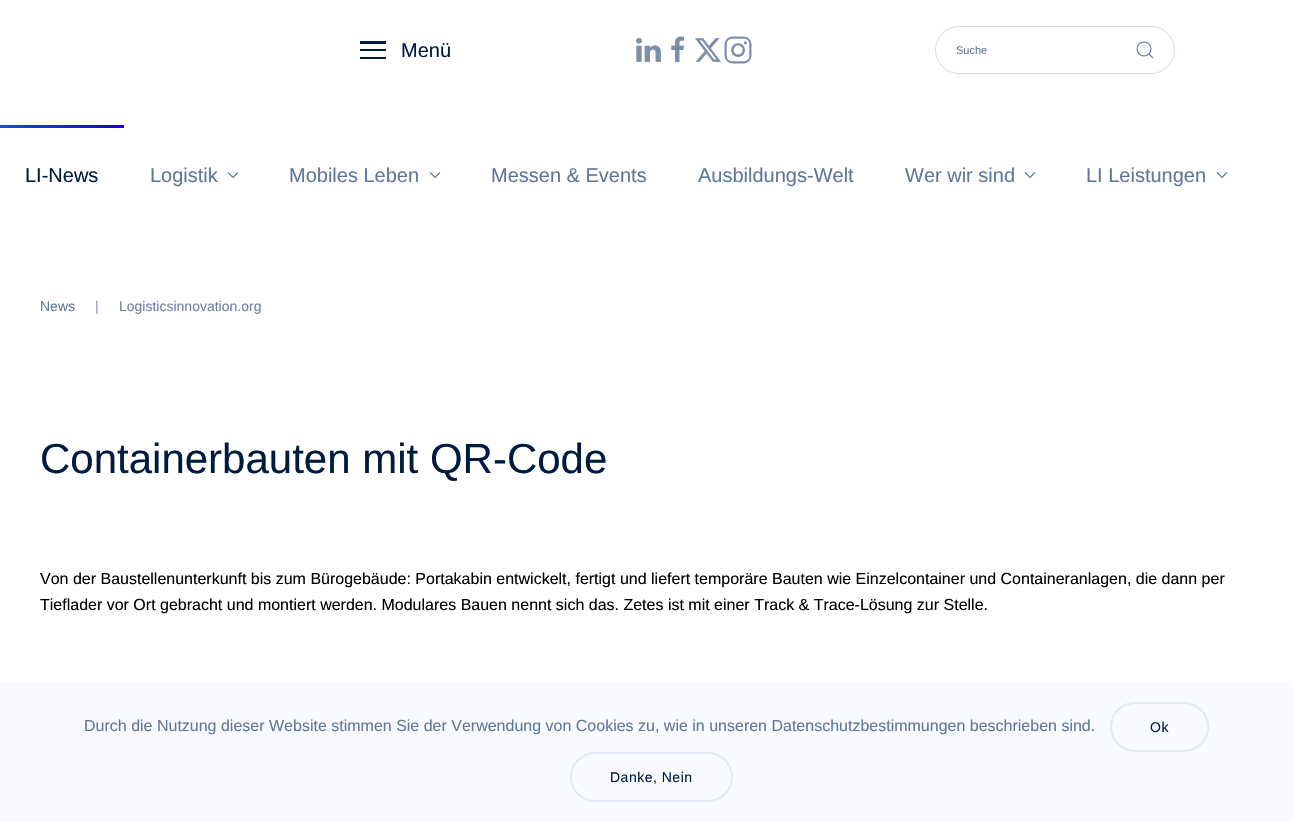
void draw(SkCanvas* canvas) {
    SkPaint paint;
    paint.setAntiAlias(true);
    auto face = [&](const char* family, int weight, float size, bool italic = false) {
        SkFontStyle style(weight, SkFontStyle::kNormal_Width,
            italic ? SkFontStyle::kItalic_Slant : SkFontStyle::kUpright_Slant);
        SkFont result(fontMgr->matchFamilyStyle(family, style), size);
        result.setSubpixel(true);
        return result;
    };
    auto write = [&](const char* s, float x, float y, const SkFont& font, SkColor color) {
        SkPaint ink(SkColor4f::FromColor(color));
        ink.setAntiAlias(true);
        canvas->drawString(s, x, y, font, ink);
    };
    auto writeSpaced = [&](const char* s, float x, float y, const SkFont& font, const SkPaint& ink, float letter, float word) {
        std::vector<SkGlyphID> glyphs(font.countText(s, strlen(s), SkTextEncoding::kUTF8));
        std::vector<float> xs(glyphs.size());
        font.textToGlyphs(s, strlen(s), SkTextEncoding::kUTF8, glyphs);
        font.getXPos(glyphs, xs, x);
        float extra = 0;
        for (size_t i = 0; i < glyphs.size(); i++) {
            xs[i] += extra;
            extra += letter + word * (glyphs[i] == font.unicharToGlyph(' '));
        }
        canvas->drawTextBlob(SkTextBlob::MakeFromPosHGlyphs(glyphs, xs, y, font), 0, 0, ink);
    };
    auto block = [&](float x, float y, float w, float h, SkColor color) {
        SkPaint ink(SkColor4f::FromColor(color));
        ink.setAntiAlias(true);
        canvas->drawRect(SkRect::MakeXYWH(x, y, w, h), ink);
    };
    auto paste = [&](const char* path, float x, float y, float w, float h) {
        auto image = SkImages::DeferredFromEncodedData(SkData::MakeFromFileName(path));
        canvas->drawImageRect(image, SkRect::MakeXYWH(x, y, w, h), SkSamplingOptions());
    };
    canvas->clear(SK_ColorWHITE);
    block(360, 41, 26, 3, SkColorSetRGB(0, 27, 64));
    block(360, 49, 26, 2, SkColorSetRGB(0, 27, 64));
    block(360, 57, 26, 2, SkColorSetRGB(0, 27, 64));
    auto kFont1 = face("Liberation Sans", 400, 20);
    write("Menü", 401, 57, kFont1, SkColorSetRGB(0, 27, 64));
    paste("pic1.png", 636, 38, 25, 24);
    paste("pic2.png", 671, 36, 13, 26);
    paste("pic3.png", 695, 38, 26, 24);
    paste("pic4.png", 724, 36, 28, 28);
    paint.setStyle(SkPaint::kStroke_Style);
    paint.setStrokeWidth(1);
    paint.setColor(SkColorSetRGB(211, 219, 240));
    canvas->drawRoundRect(SkRect::MakeXYWH(935.5f, 26.5f, 239, 47), 23.5f, 23.5f, paint);
    auto kFont2 = face("Liberation Sans", 400, 11);
    write("Suche", 956, 54, kFont2, SkColorSetRGB(96, 118, 154));
    paint.setStrokeWidth(1.1f);
    paint.setColor(SkColorSetRGB(96, 118, 154));
    canvas->drawCircle(1144, 49, 7, paint);
    canvas->drawPath(SkPathBuilder().moveTo(1149, 54).lineTo(1153, 58).close().detach(), paint);
    paint.setStyle(SkPaint::kFill_Style);
    {
        const SkColor colors[] = {SkColorSetRGB(10, 86, 199), SkColorSetRGB(20, 0, 209)};
        const float stops[] = {0, 1};
        const SkPoint ends[] = {{30, 158}, {94, 95}};
        paint.setShader(SkGradientShader::MakeLinear(ends, colors, stops, 2, SkTileMode::kClamp));
        paint.setAlpha(255);
    }
    canvas->drawRect(SkRect::MakeXYWH(0, 125, 124, 3), paint);
    write("LI-News", 25, 182, kFont1, SkColorSetRGB(0, 27, 64));
    write("Logistik", 150, 182, kFont1, SkColorSetRGB(96, 118, 154));
    paint.setStyle(SkPaint::kStroke_Style);
    paint.setShader(nullptr);
    paint.setColor(SkColorSetRGB(96, 118, 154));
    canvas->drawPath(SkPathBuilder().moveTo(228, 172.5f).lineTo(233, 177.5f).lineTo(238, 172.5f).detach(), paint);
    write("Mobiles Leben", 289, 182, kFont1, SkColorSetRGB(96, 118, 154));
    canvas->drawPath(SkPathBuilder().moveTo(430, 172.5f).lineTo(435, 177.5f).lineTo(440, 172.5f).detach(), paint);
    write("Messen & Events", 491, 182, kFont1, SkColorSetRGB(96, 118, 154));
    write("Ausbildungs-Welt", 698, 182, kFont1, SkColorSetRGB(96, 118, 154));
    write("Wer wir sind", 905, 182, kFont1, SkColorSetRGB(96, 118, 154));
    canvas->drawPath(SkPathBuilder().moveTo(1025, 172.5f).lineTo(1030, 177.5f).lineTo(1035, 172.5f).detach(), paint);
    write("LI Leistungen", 1086, 182, kFont1, SkColorSetRGB(96, 118, 154));
    canvas->drawPath(SkPathBuilder().moveTo(1217, 172.5f).lineTo(1222, 177.5f).lineTo(1227, 172.5f).detach(), paint);
    auto kFont3 = face("Liberation Sans", 400, 14);
    write("News", 40, 311, kFont3, SkColorSetRGB(96, 118, 154));
    write("|", 95, 311, kFont3, SkColorSetRGB(142, 158, 185));
    write("Logisticsinnovation.org", 119, 311, kFont3, SkColorSetRGB(111, 131, 165));
    auto kFont4 = face("Liberation Sans", 400, 42);
    write("Containerbauten mit QR-Code", 40, 473, kFont4, SkColorSetRGB(0, 27, 64));
    auto kFont5 = face("Liberation Sans", 400, 16);
    write("Von der Baustellenunterkunft bis zum Bürogebäude: Portakabin entwickelt, fertigt und liefert temporäre Bauten wie Einzelcontainer und Containeranlagen, die dann per", 40, 584, kFont5, SK_ColorBLACK);
    write("Tieflader vor Ort gebracht und montiert werden. Modulares Bauen nennt sich das. Zetes ist mit einer Track & Trace-Lösung zur Stelle.", 40, 610, kFont5, SK_ColorBLACK);
    block(0, 682, 1293, 140, SkColorSetRGB(248, 250, 255));
    write("Durch die Nutzung dieser Website stimmen Sie der Verwendung von Cookies zu, wie in unseren Datenschutzbestimmungen beschrieben sind.", 84, 731, kFont5, SkColorSetRGB(96, 118, 154));
    paint.setStrokeWidth(2);
    paint.setColor(SkColorSetRGB(226, 232, 246));
    canvas->drawRoundRect(SkRect::MakeXYWH(1111, 703, 97, 48), 24, 24, paint);
    paint.setStyle(SkPaint::kFill_Style);
    paint.setColor(SkColorSetRGB(0, 27, 64));
    writeSpaced("Ok", 1150, 732, kFont3, paint, 0.5f, 0);
    paint.setStyle(SkPaint::kStroke_Style);
    paint.setColor(SkColorSetRGB(226, 232, 246));
    canvas->drawRoundRect(SkRect::MakeXYWH(571, 753, 161, 48), 24, 24, paint);
    paint.setStyle(SkPaint::kFill_Style);
    paint.setColor(SkColorSetRGB(0, 27, 64));
    writeSpaced("Danke, Nein", 610, 782, kFont3, paint, 0.5f, 0);
}
